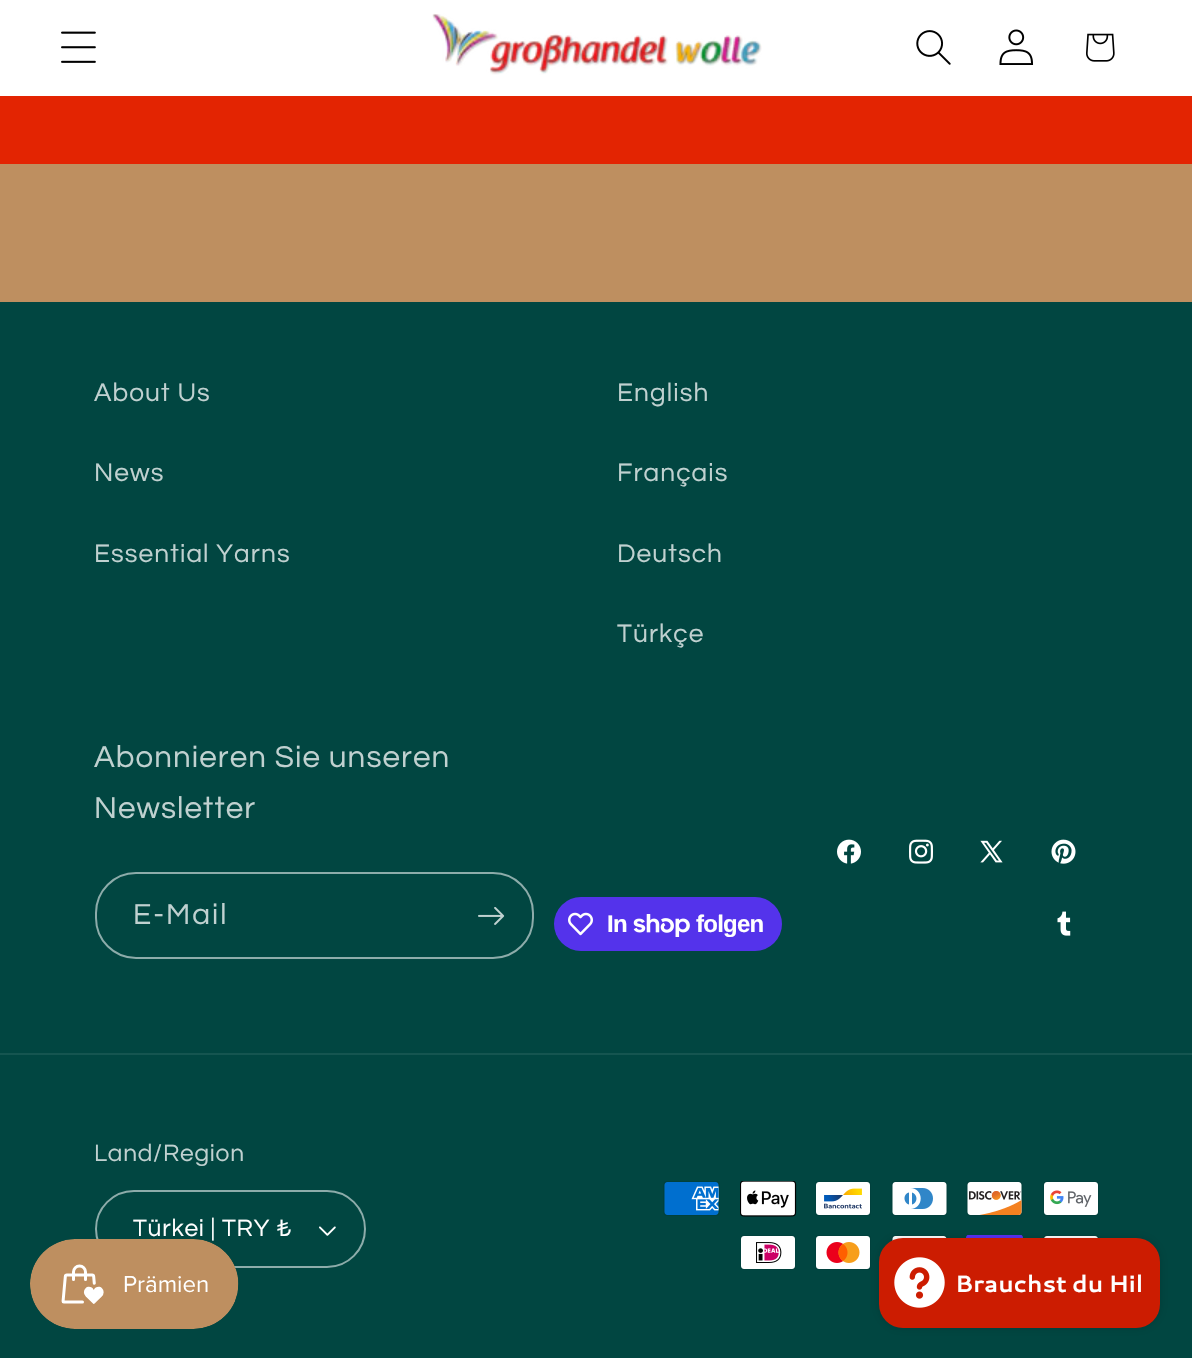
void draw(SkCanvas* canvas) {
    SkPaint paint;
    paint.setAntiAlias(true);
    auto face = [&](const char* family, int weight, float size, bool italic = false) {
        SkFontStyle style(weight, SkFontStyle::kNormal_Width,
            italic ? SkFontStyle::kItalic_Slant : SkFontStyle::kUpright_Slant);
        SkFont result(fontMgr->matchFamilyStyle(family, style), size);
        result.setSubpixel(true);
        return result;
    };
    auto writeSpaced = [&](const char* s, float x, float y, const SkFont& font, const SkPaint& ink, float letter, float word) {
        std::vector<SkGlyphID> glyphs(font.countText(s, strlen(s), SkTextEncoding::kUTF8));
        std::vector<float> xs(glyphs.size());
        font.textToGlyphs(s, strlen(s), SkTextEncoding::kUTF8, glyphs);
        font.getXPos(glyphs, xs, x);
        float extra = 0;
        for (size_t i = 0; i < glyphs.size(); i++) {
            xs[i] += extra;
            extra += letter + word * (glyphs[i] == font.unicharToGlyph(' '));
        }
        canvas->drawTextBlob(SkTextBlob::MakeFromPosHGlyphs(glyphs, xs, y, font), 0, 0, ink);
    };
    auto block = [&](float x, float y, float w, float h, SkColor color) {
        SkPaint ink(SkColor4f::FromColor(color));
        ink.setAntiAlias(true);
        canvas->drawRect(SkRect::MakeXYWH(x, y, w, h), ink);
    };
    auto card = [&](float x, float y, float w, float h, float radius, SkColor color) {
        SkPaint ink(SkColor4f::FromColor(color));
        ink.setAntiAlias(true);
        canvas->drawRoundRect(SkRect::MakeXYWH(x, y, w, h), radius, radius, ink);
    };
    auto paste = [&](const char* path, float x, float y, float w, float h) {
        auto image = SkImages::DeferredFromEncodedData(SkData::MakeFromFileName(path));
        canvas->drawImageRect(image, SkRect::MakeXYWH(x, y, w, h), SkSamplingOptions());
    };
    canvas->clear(SkColorSetRGB(227, 36, 2));
    block(0, 0, 1192, 96, SK_ColorWHITE);
    paste("pic1.png", 61, 31, 35, 32);
    paste("pic2.png", 432, 13, 330, 62);
    paste("pic3.png", 916, 30, 35, 35);
    paste("pic4.png", 999, 29, 35, 36);
    paste("pic5.png", 1086, 33, 29, 29);
    block(0, 164, 1192, 138, SkColorSetRGB(190, 143, 96));
    block(0, 302, 1192, 1056, SkColorSetRGB(1, 70, 65));
    auto kFont1 = face("Questrial", 400, 26.25f);
    paint.setColor(SkColorSetRGB(192, 209, 208));
    writeSpaced("About Us", 94, 401, kFont1, paint, 1.1f, 0);
    writeSpaced("News", 94, 481, kFont1, paint, 1.1f, 0);
    writeSpaced("Essential Yarns", 94, 562, kFont1, paint, 1.1f, 0);
    writeSpaced("English", 617, 401, kFont1, paint, 1.1f, 0);
    writeSpaced("Français", 617, 481, kFont1, paint, 1.1f, 0);
    writeSpaced("Deutsch", 617, 562, kFont1, paint, 1.1f, 0);
    writeSpaced("Türkçe", 617, 642, kFont1, paint, 1.1f, 0);
    auto kFont2 = face("Questrial", 400, 31.25f);
    writeSpaced("Abonnieren Sie unseren", 94, 767, kFont2, paint, 1.1f, 0);
    writeSpaced("Newsletter", 94, 818, kFont2, paint, 1.1f, 0);
    paint.setStyle(SkPaint::kStroke_Style);
    paint.setStrokeWidth(2);
    paint.setColor(SkColorSetRGB(141, 172, 170));
    canvas->drawRoundRect(SkRect::MakeXYWH(96, 873, 437, 85), 40, 40, paint);
    auto kFont3 = face("Questrial", 400, 30);
    paint.setStyle(SkPaint::kFill_Style);
    paint.setColor(SkColorSetRGB(192, 209, 208));
    writeSpaced("E-Mail", 133, 924, kFont3, paint, 2, 0);
    paste("pic6.png", 478, 907, 27, 18);
    card(554, 897, 228, 54, 27, SkColorSetRGB(84, 51, 235));
    paste("pic7.png", 568, 912, 25, 24);
    auto kFont4 = face("Liberation Sans", 700, 24);
    paint.setColor(SK_ColorWHITE);
    writeSpaced("In", 607, 932, kFont4, paint, -0.75f, 0);
    paste("pic8.png", 633, 914, 57, 23);
    writeSpaced("folgen", 696, 932, kFont4, paint, -0.75f, 0);
    paste("pic9.png", 837, 839, 24, 25);
    paste("pic10.png", 909, 839, 24, 25);
    paste("pic11.png", 980, 840, 23, 23);
    paste("pic12.png", 1051, 839, 25, 25);
    paste("pic13.png", 1057, 911, 14, 25);
    block(0, 1053, 1192, 2, SkColorSetRGB(21, 85, 80));
    auto kFont5 = face("Questrial", 400, 24.5f);
    paint.setColor(SkColorSetRGB(192, 209, 208));
    writeSpaced("Land/Region", 94, 1161, kFont5, paint, 0.75f, 0);
    paste("pic14.png", 319, 1226, 17, 10);
    paint.setStyle(SkPaint::kStroke_Style);
    paint.setColor(SkColorSetRGB(141, 172, 170));
    canvas->drawRoundRect(SkRect::MakeXYWH(96, 1191, 269, 76), 38, 38, paint);
    paint.setStyle(SkPaint::kFill_Style);
    paint.setColor(SK_ColorWHITE);
    writeSpaced("Türkei | TRY ₺", 133, 1236, kFont5, paint, 0.75f, 0);
    paste("pic15.png", 663, 1181, 57, 35);
    paste("pic16.png", 740, 1181, 57, 36);
    paste("pic17.png", 815, 1181, 56, 35);
    paste("pic18.png", 891, 1181, 57, 35);
    paste("pic19.png", 966, 1181, 57, 35);
    paste("pic20.png", 1043, 1181, 56, 35);
    paste("pic21.png", 740, 1235, 56, 35);
    paste("pic22.png", 815, 1235, 56, 35);
    paste("pic23.png", 891, 1235, 57, 7);
    paste("pic24.png", 966, 1235, 57, 3);
    paste("pic25.png", 1043, 1235, 56, 3);
    paste("pic26.png", 30, 1239, 209, 90);
    paint.setColor(SkColorSetARGB(38, 0, 0, 0));
    paint.setMaskFilter(SkMaskFilter::MakeBlur(kNormal_SkBlurStyle, 4));
    canvas->drawRoundRect(SkRect::MakeXYWH(879, 1238, 281, 90), 24, 24, paint);
    paint.setMaskFilter(nullptr);
    card(879, 1238, 281, 90, 24, SkColorSetRGB(204, 28, 1));
    paste("pic27.png", 894, 1257, 51, 51);
    auto kFont6 = face("Cantarell", 700, 23.5f);
    paint.setColor(SK_ColorWHITE);
    writeSpaced("Brauchst du Hil", 955, 1292, kFont6, paint, 0, -1);
}
